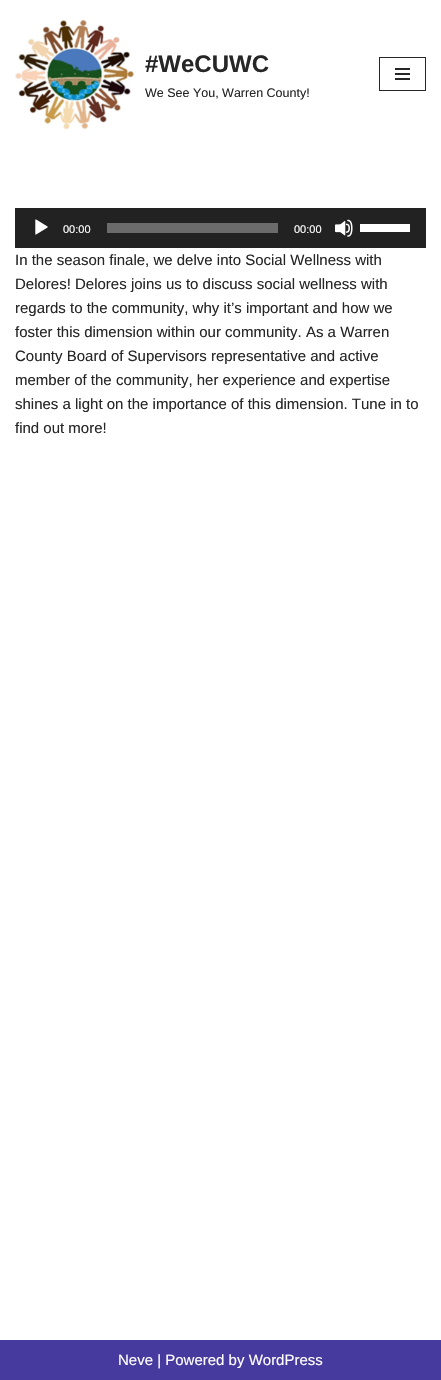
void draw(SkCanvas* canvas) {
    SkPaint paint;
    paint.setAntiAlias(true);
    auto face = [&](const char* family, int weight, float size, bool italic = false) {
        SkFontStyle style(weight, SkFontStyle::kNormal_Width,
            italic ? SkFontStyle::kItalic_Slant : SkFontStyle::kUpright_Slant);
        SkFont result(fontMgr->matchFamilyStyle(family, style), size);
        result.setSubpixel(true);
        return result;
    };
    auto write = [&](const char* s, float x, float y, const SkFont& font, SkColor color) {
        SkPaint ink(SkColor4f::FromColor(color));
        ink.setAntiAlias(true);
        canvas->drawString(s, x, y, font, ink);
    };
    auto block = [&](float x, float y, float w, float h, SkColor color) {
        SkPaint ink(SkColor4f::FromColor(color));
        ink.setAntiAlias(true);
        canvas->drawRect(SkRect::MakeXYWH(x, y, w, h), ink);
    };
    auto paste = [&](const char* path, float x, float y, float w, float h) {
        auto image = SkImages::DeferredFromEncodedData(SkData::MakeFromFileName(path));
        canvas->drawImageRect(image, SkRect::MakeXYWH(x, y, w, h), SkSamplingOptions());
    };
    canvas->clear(SK_ColorWHITE);
    paste("pic1.png", 15, 19, 120, 111);
    auto kFont1 = face("Liberation Sans", 700, 24);
    write("#WeCUWC", 145, 72, kFont1, SkColorSetRGB(39, 38, 38));
    auto kFont2 = face("Liberation Sans", 400, 12.5f);
    write("We See You, Warren County!", 145, 97, kFont2, SkColorSetRGB(39, 38, 38));
    paint.setStyle(SkPaint::kStroke_Style);
    paint.setStrokeWidth(1);
    paint.setColor(SkColorSetRGB(39, 38, 38));
    canvas->drawRect(SkRect::MakeXYWH(379.5f, 57.5f, 46, 33), paint);
    block(395, 68, 15, 2, SkColorSetRGB(39, 38, 38));
    block(395, 73, 15, 2, SkColorSetRGB(39, 38, 38));
    block(395, 78, 15, 2, SkColorSetRGB(39, 38, 38));
    block(15, 208, 411, 40, SkColorSetRGB(34, 34, 34));
    paste("pic2.png", 35, 219, 13, 16);
    auto kFont3 = face("Liberation Sans", 400, 11);
    write("00:00", 63, 233, kFont3, SK_ColorWHITE);
    block(107, 223, 171, 10, SkColorSetRGB(107, 107, 107));
    write("00:00", 294, 233, kFont3, SK_ColorWHITE);
    paste("pic3.png", 335, 219, 18, 18);
    block(360, 224, 50, 8, SK_ColorWHITE);
    auto kFont4 = face("Liberation Sans", 400, 15);
    write("In the season finale, we delve into Social Wellness with", 15, 265, kFont4, SkColorSetRGB(39, 38, 38));
    write("Delores! Delores joins us to discuss social wellness with", 15, 289, kFont4, SkColorSetRGB(39, 38, 38));
    write("regards to the community, why it’s important and how we", 15, 313, kFont4, SkColorSetRGB(39, 38, 38));
    write("foster this dimension within our community. As a Warren", 15, 337, kFont4, SkColorSetRGB(39, 38, 38));
    write("County Board of Supervisors representative and active", 15, 361, kFont4, SkColorSetRGB(39, 38, 38));
    write("member of the community, her experience and expertise", 15, 385, kFont4, SkColorSetRGB(39, 38, 38));
    write("shines a light on the importance of this dimension. Tune in to", 15, 409, kFont4, SkColorSetRGB(39, 38, 38));
    write("find out more!", 15, 433, kFont4, SkColorSetRGB(39, 38, 38));
    block(0, 1340, 441, 40, SkColorSetRGB(71, 58, 158));
    write("Neve | Powered by WordPress", 118, 1365, kFont4, SK_ColorWHITE);
}
